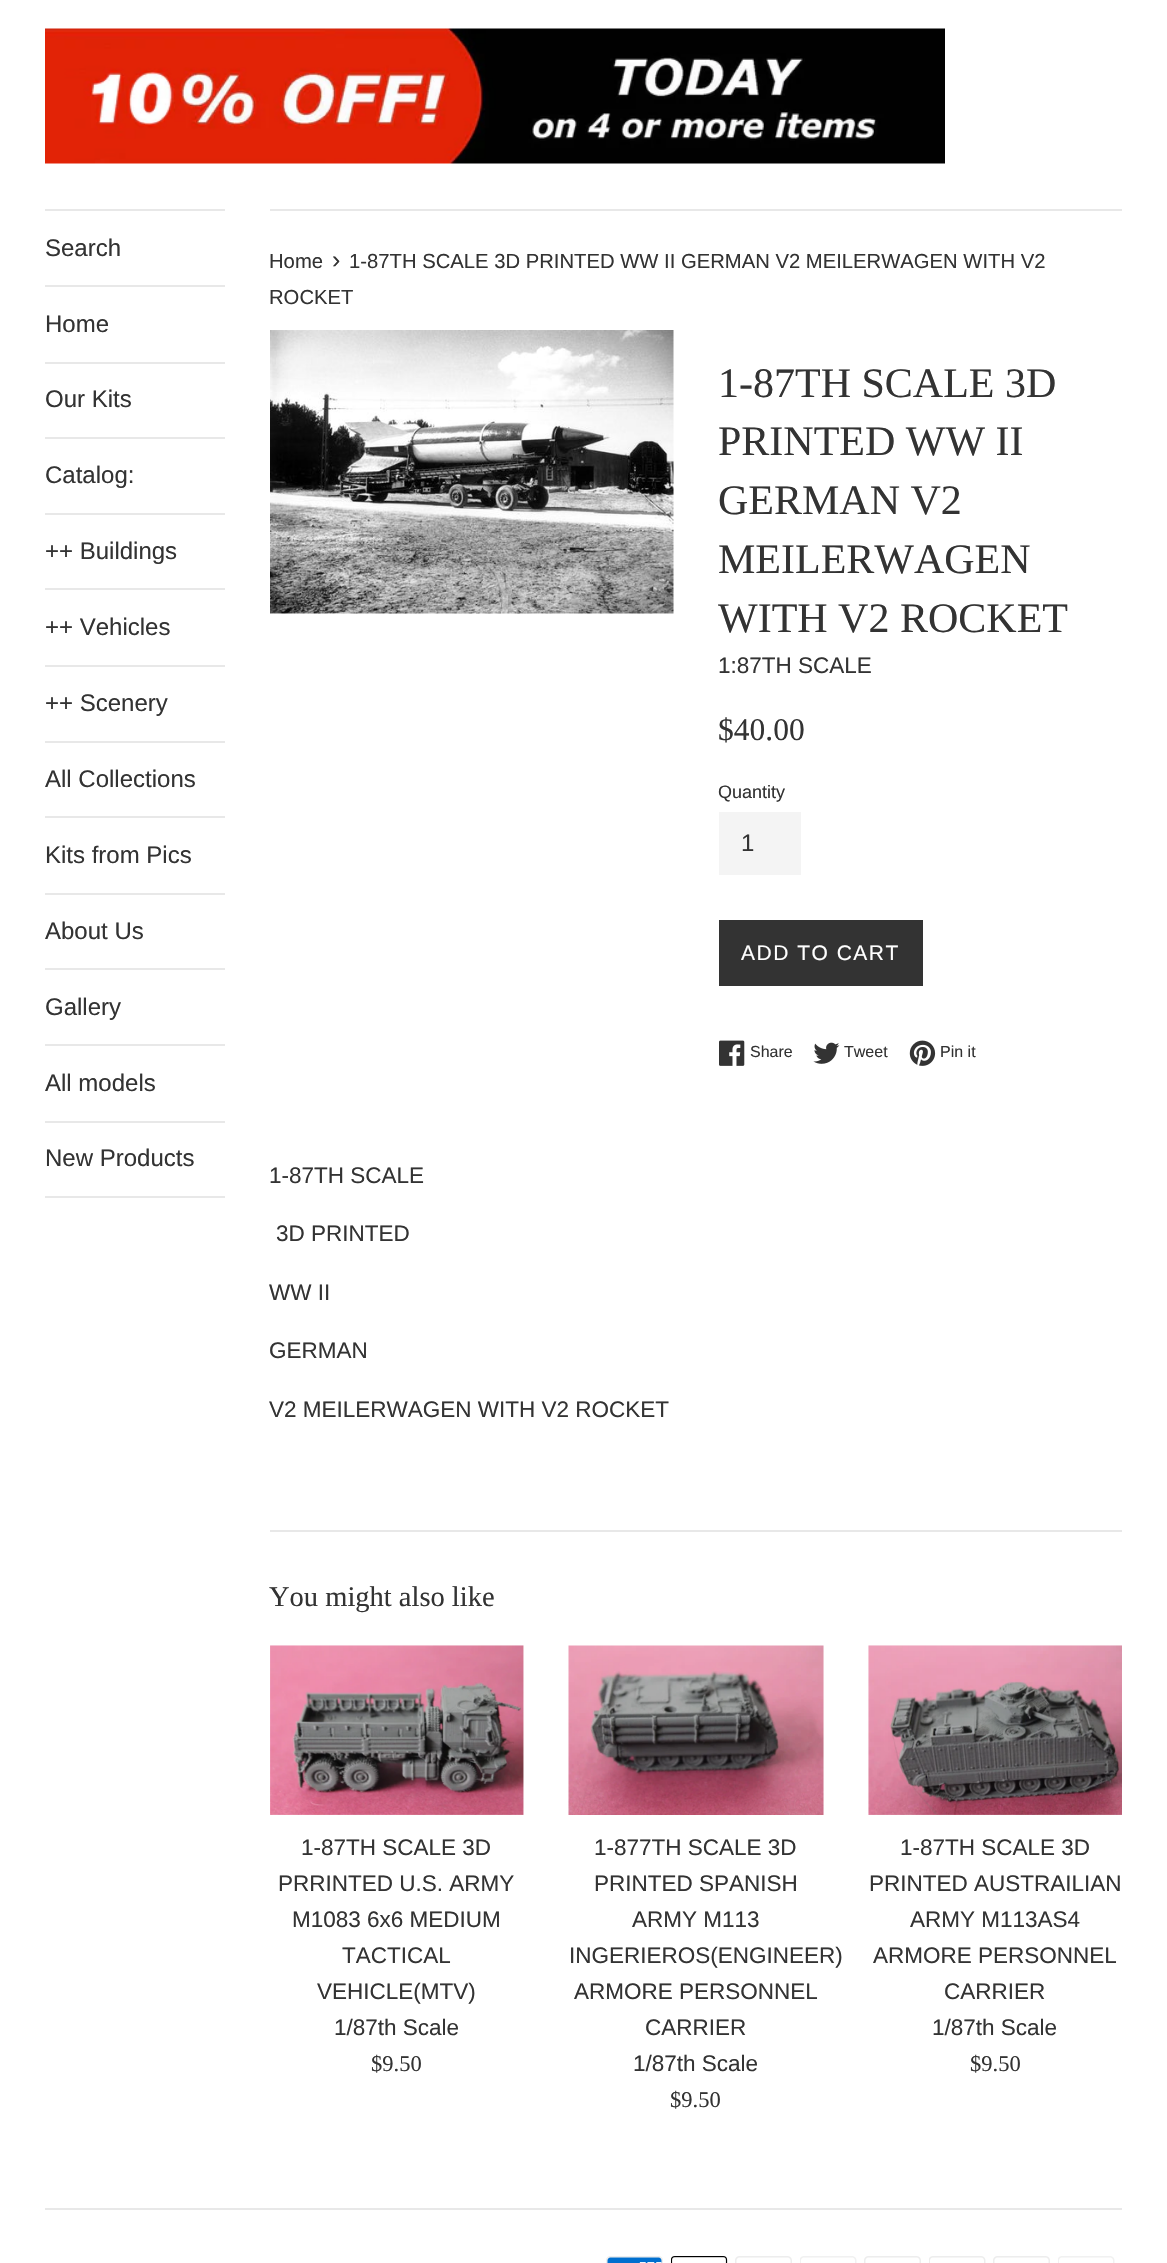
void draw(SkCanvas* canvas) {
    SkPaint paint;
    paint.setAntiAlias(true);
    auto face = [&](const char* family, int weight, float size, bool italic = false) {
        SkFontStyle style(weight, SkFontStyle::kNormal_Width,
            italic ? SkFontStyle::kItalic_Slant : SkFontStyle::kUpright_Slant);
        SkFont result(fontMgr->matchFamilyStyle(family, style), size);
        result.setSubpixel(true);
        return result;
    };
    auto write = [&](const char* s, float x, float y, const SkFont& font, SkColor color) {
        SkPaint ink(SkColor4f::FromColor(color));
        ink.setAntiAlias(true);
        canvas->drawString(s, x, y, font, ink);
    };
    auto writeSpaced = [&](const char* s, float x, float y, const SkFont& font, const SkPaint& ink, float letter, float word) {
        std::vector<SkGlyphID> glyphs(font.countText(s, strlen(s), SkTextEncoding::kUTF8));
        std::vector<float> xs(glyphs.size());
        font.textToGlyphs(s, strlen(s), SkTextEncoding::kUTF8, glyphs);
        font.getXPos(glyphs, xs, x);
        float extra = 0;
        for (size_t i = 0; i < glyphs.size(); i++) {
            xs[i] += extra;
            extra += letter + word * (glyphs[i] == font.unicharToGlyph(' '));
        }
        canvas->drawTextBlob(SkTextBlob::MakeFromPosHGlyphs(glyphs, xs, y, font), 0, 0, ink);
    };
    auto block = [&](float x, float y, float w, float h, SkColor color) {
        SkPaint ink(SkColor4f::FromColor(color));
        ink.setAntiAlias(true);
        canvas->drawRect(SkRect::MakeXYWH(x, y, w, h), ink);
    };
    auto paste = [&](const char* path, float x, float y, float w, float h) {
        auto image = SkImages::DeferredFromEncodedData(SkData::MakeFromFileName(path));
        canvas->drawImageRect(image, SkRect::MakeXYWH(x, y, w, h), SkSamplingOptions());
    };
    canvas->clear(SK_ColorWHITE);
    paste("pic1.png", 45, 28, 900, 136);
    block(45, 209, 180, 2, SkColorSetRGB(232, 232, 232));
    block(45, 285, 180, 2, SkColorSetRGB(232, 232, 232));
    auto kFont1 = face("Liberation Sans", 400, 24);
    write("Search", 45, 256, kFont1, SkColorSetRGB(51, 51, 51));
    block(45, 362, 180, 2, SkColorSetRGB(232, 232, 232));
    write("Home", 45, 332, kFont1, SkColorSetRGB(51, 51, 51));
    block(45, 437, 180, 2, SkColorSetRGB(232, 232, 232));
    write("Our Kits", 45, 407, kFont1, SkColorSetRGB(51, 51, 51));
    block(45, 513, 180, 2, SkColorSetRGB(232, 232, 232));
    write("Catalog:", 45, 483, kFont1, SkColorSetRGB(51, 51, 51));
    block(45, 588, 180, 2, SkColorSetRGB(232, 232, 232));
    write("++ Buildings", 45, 559, kFont1, SkColorSetRGB(51, 51, 51));
    block(45, 665, 180, 2, SkColorSetRGB(232, 232, 232));
    write("++ Vehicles", 45, 635, kFont1, SkColorSetRGB(51, 51, 51));
    block(45, 741, 180, 2, SkColorSetRGB(232, 232, 232));
    write("++ Scenery", 45, 711, kFont1, SkColorSetRGB(51, 51, 51));
    block(45, 816, 180, 2, SkColorSetRGB(232, 232, 232));
    write("All Collections", 45, 787, kFont1, SkColorSetRGB(51, 51, 51));
    block(45, 893, 180, 2, SkColorSetRGB(232, 232, 232));
    write("Kits from Pics", 45, 863, kFont1, SkColorSetRGB(51, 51, 51));
    block(45, 968, 180, 2, SkColorSetRGB(232, 232, 232));
    write("About Us", 45, 939, kFont1, SkColorSetRGB(51, 51, 51));
    block(45, 1044, 180, 2, SkColorSetRGB(232, 232, 232));
    write("Gallery", 45, 1015, kFont1, SkColorSetRGB(51, 51, 51));
    block(45, 1121, 180, 2, SkColorSetRGB(232, 232, 232));
    write("All models", 45, 1091, kFont1, SkColorSetRGB(51, 51, 51));
    block(45, 1196, 180, 2, SkColorSetRGB(232, 232, 232));
    write("New Products", 45, 1166, kFont1, SkColorSetRGB(51, 51, 51));
    block(270, 209, 852, 2, SkColorSetRGB(232, 232, 232));
    auto kFont2 = face("Liberation Sans", 400, 20.25f);
    write("Home", 269, 268, kFont2, SkColorSetRGB(51, 51, 51));
    auto kFont3 = face("Liberation Sans", 400, 25);
    write("›", 332, 268, kFont3, SkColorSetRGB(51, 51, 51));
    write("1-87TH SCALE 3D PRINTED WW II GERMAN V2 MEILERWAGEN WITH V2", 349, 268, kFont2, SkColorSetRGB(51, 51, 51));
    write("ROCKET", 269, 304, kFont2, SkColorSetRGB(51, 51, 51));
    paste("pic2.png", 270, 330, 404, 284);
    auto kFont4 = face("Liberation Serif", 400, 42);
    write("1-87TH SCALE 3D", 718, 397, kFont4, SkColorSetRGB(51, 51, 51));
    write("PRINTED WW II", 718, 455, kFont4, SkColorSetRGB(51, 51, 51));
    write("GERMAN V2", 718, 514, kFont4, SkColorSetRGB(51, 51, 51));
    write("MEILERWAGEN", 718, 573, kFont4, SkColorSetRGB(51, 51, 51));
    write("WITH V2 ROCKET", 718, 632, kFont4, SkColorSetRGB(51, 51, 51));
    auto kFont5 = face("Liberation Sans", 400, 22.5f);
    write("1:87TH SCALE", 718, 673, kFont5, SkColorSetRGB(51, 51, 51));
    auto kFont6 = face("Liberation Serif", 400, 31.5f);
    write("$40.00", 718, 740, kFont6, SkColorSetRGB(51, 51, 51));
    auto kFont7 = face("Liberation Sans", 400, 18);
    write("Quantity", 718, 798, kFont7, SkColorSetRGB(51, 51, 51));
    block(719, 812, 82, 63, SkColorSetRGB(244, 244, 244));
    write("1", 741, 851, kFont1, SkColorSetRGB(51, 51, 51));
    block(719, 920, 204, 66, SkColorSetRGB(51, 51, 51));
    auto kFont8 = face("Liberation Sans", 400, 21);
    paint.setColor(SK_ColorWHITE);
    writeSpaced("ADD TO CART", 741, 960, kFont8, paint, 1.5f, 0);
    paste("pic3.png", 719, 1040, 26, 26);
    auto kFont9 = face("Liberation Sans", 400, 16);
    write("Share", 750, 1057, kFont9, SkColorSetRGB(51, 51, 51));
    paste("pic4.png", 813, 1042, 27, 22);
    write("Tweet", 844, 1057, kFont9, SkColorSetRGB(51, 51, 51));
    paste("pic5.png", 909, 1040, 27, 26);
    write("Pin it", 940, 1057, kFont9, SkColorSetRGB(51, 51, 51));
    write("1-87TH SCALE", 269, 1183, kFont5, SkColorSetRGB(51, 51, 51));
    write("3D PRINTED", 276, 1241, kFont5, SkColorSetRGB(51, 51, 51));
    write("WW II", 269, 1300, kFont5, SkColorSetRGB(51, 51, 51));
    write("GERMAN", 269, 1358, kFont5, SkColorSetRGB(51, 51, 51));
    write("V2 MEILERWAGEN WITH V2 ROCKET", 269, 1417, kFont5, SkColorSetRGB(51, 51, 51));
    block(270, 1530, 852, 2, SkColorSetRGB(232, 232, 232));
    auto kFont10 = face("Liberation Serif", 400, 28.5f);
    write("You might also like", 269, 1606, kFont10, SkColorSetRGB(51, 51, 51));
    paste("pic6.png", 270, 1645, 254, 170);
    write("1-87TH SCALE 3D", 301, 1855, kFont5, SkColorSetRGB(51, 51, 51));
    write("PRRINTED U.S. ARMY", 278, 1891, kFont5, SkColorSetRGB(51, 51, 51));
    write("M1083 6x6 MEDIUM", 292, 1927, kFont5, SkColorSetRGB(51, 51, 51));
    write("TACTICAL", 342, 1963, kFont5, SkColorSetRGB(51, 51, 51));
    write("VEHICLE(MTV)", 317, 1999, kFont5, SkColorSetRGB(51, 51, 51));
    write("1/87th Scale", 334, 2035, kFont5, SkColorSetRGB(51, 51, 51));
    auto kFont11 = face("Liberation Serif", 400, 22.5f);
    write("$9.50", 371, 2071, kFont11, SkColorSetRGB(51, 51, 51));
    paste("pic7.png", 568, 1645, 256, 170);
    write("1-877TH SCALE 3D", 594, 1855, kFont5, SkColorSetRGB(51, 51, 51));
    write("PRINTED SPANISH", 594, 1891, kFont5, SkColorSetRGB(51, 51, 51));
    write("ARMY M113", 632, 1927, kFont5, SkColorSetRGB(51, 51, 51));
    write("INGERIEROS(ENGINEER)", 569, 1963, kFont5, SkColorSetRGB(51, 51, 51));
    write("ARMORE PERSONNEL", 574, 1999, kFont5, SkColorSetRGB(51, 51, 51));
    write("CARRIER", 645, 2035, kFont5, SkColorSetRGB(51, 51, 51));
    write("1/87th Scale", 633, 2071, kFont5, SkColorSetRGB(51, 51, 51));
    write("$9.50", 670, 2107, kFont11, SkColorSetRGB(51, 51, 51));
    paste("pic8.png", 868, 1645, 254, 170);
    write("1-87TH SCALE 3D", 900, 1855, kFont5, SkColorSetRGB(51, 51, 51));
    write("PRINTED AUSTRAILIAN", 869, 1891, kFont5, SkColorSetRGB(51, 51, 51));
    write("ARMY M113AS4", 910, 1927, kFont5, SkColorSetRGB(51, 51, 51));
    write("ARMORE PERSONNEL", 873, 1963, kFont5, SkColorSetRGB(51, 51, 51));
    write("CARRIER", 944, 1999, kFont5, SkColorSetRGB(51, 51, 51));
    write("1/87th Scale", 932, 2035, kFont5, SkColorSetRGB(51, 51, 51));
    write("$9.50", 970, 2071, kFont11, SkColorSetRGB(51, 51, 51));
    block(45, 2208, 1077, 2, SkColorSetRGB(232, 232, 232));
    paste("pic9.png", 606, 2256, 57, 7);
    paste("pic10.png", 671, 2256, 57, 7);
    paste("pic11.png", 735, 2256, 57, 7);
    paste("pic12.png", 800, 2256, 57, 7);
    paste("pic11.png", 864, 2256, 57, 7);
    paste("pic13.png", 929, 2256, 57, 7);
    paste("pic11.png", 993, 2256, 57, 7);
    paste("pic12.png", 1058, 2256, 57, 7);
}
